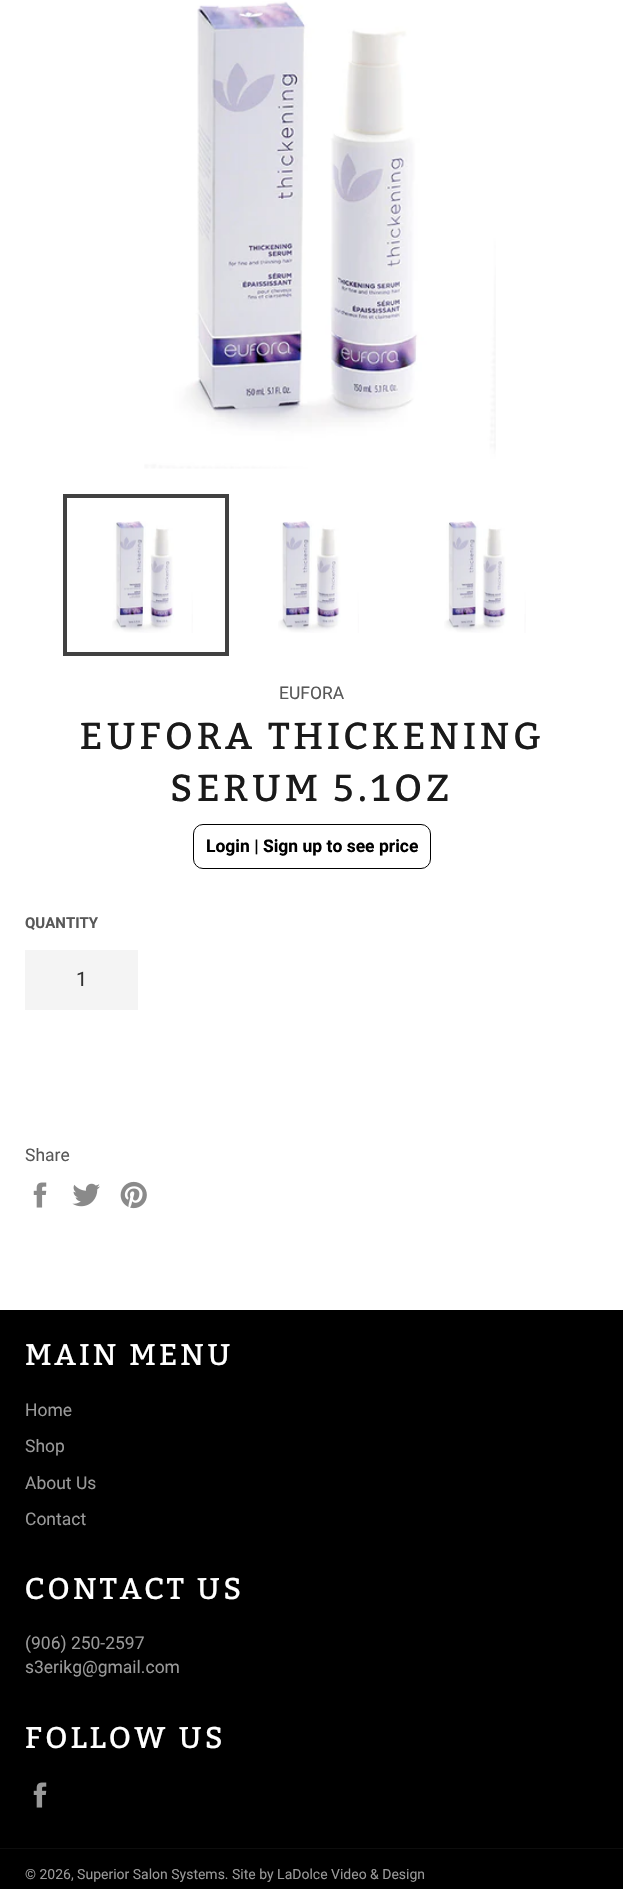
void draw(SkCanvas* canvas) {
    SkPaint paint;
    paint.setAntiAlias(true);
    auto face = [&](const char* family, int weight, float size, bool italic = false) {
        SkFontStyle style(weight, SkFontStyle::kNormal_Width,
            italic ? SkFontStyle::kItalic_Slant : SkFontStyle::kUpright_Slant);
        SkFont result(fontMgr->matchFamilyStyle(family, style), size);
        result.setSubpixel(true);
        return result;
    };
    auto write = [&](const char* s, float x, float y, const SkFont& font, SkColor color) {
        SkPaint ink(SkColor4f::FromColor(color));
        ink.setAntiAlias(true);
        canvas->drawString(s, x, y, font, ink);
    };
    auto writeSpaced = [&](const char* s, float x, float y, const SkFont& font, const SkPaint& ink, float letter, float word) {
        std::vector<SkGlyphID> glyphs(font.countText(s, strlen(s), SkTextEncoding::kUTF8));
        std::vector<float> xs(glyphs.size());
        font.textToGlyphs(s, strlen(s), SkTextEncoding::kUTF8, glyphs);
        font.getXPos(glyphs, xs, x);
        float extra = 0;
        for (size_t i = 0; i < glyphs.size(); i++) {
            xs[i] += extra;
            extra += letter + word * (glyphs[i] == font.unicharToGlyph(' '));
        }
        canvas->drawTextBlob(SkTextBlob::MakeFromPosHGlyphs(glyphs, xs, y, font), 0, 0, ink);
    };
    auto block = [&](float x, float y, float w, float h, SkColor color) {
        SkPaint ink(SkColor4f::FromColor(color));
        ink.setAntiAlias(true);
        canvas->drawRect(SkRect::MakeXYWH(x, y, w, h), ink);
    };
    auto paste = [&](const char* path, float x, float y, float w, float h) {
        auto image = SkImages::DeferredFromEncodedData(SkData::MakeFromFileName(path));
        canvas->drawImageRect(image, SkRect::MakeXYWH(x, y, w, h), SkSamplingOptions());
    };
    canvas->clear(SK_ColorWHITE);
    paste("pic1.png", 144, 1, 352, 468);
    paste("pic2.png", 112, 521, 81, 112);
    paint.setStyle(SkPaint::kStroke_Style);
    paint.setStrokeWidth(4);
    paint.setColor(SkColorSetRGB(65, 65, 65));
    canvas->drawRect(SkRect::MakeXYWH(65, 496, 162, 158), paint);
    paste("pic3.png", 278, 521, 81, 112);
    paste("pic4.png", 444, 521, 82, 112);
    auto kFont1 = face("Roboto", 400, 17.5f);
    write("EUFORA", 279, 699, kFont1, SkColorSetRGB(88, 88, 88));
    auto kFont2 = face("Bitter", 400, 37.5f);
    paint.setStyle(SkPaint::kFill_Style);
    paint.setColor(SkColorSetRGB(26, 26, 26));
    writeSpaced("EUFORA THICKENING", 79, 749, kFont2, paint, 3.75f, 0);
    writeSpaced("SERUM 5.1OZ", 170, 801, kFont2, paint, 3.75f, 0);
    paint.setStyle(SkPaint::kStroke_Style);
    paint.setStrokeWidth(1);
    paint.setColor(SK_ColorBLACK);
    canvas->drawRoundRect(SkRect::MakeXYWH(193.5f, 824.5f, 237, 44), 9.5f, 9.5f, paint);
    auto kFont3 = face("Roboto", 700, 17.5f);
    write("Login | Sign up to see price", 206, 852, kFont3, SK_ColorBLACK);
    auto kFont4 = face("Roboto", 700, 15);
    write("QUANTITY", 25, 928, kFont4, SkColorSetRGB(88, 88, 88));
    block(25, 950, 113, 60, SkColorSetRGB(244, 244, 244));
    auto kFont5 = face("Roboto", 400, 20);
    write("1", 76, 986, kFont5, SkColorSetRGB(51, 51, 51));
    write("Share", 25, 1161, kFont1, SkColorSetRGB(88, 88, 88));
    paste("pic5.png", 33, 1182, 14, 26);
    paste("pic6.png", 72, 1183, 28, 24);
    paste("pic7.png", 120, 1181, 27, 28);
    block(0, 1310, 623, 579, SK_ColorBLACK);
    auto kFont6 = face("Bitter", 400, 30);
    paint.setStyle(SkPaint::kFill_Style);
    paint.setColor(SK_ColorWHITE);
    writeSpaced("MAIN MENU", 25, 1365, kFont6, paint, 3, 0);
    write("Home", 25, 1416, kFont1, SkColorSetRGB(153, 153, 153));
    write("Shop", 25, 1452, kFont1, SkColorSetRGB(153, 153, 153));
    write("About Us", 25, 1489, kFont1, SkColorSetRGB(153, 153, 153));
    write("Contact", 25, 1525, kFont1, SkColorSetRGB(153, 153, 153));
    writeSpaced("CONTACT US", 25, 1599, kFont6, paint, 3, 0);
    write("(906) 250-2597", 25, 1649, kFont1, SkColorSetRGB(153, 153, 153));
    write("s3erikg@gmail.com", 25, 1673, kFont1, SkColorSetRGB(153, 153, 153));
    writeSpaced("FOLLOW US", 25, 1748, kFont6, paint, 3, 0);
    paste("pic8.png", 33, 1782, 14, 26);
    block(0, 1848, 623, 1, SkColorSetRGB(13, 13, 13));
    auto kFont7 = face("Roboto", 400, 14);
    write("© 2026, Superior Salon Systems. Site by LaDolce Video & Design", 25, 1879, kFont7, SkColorSetRGB(153, 153, 153));
}
